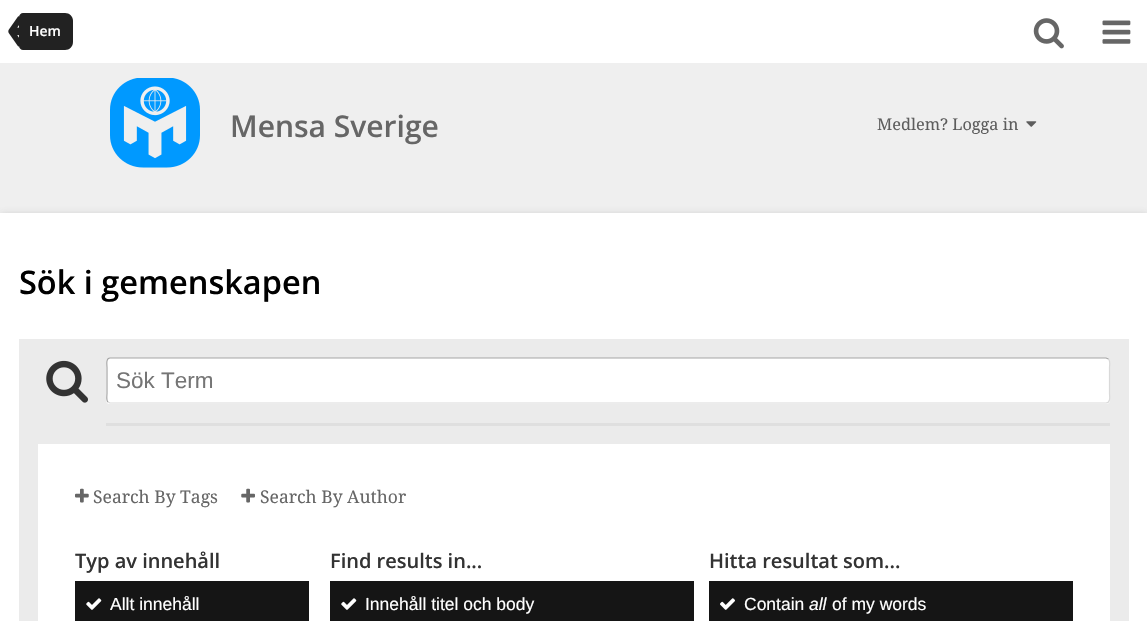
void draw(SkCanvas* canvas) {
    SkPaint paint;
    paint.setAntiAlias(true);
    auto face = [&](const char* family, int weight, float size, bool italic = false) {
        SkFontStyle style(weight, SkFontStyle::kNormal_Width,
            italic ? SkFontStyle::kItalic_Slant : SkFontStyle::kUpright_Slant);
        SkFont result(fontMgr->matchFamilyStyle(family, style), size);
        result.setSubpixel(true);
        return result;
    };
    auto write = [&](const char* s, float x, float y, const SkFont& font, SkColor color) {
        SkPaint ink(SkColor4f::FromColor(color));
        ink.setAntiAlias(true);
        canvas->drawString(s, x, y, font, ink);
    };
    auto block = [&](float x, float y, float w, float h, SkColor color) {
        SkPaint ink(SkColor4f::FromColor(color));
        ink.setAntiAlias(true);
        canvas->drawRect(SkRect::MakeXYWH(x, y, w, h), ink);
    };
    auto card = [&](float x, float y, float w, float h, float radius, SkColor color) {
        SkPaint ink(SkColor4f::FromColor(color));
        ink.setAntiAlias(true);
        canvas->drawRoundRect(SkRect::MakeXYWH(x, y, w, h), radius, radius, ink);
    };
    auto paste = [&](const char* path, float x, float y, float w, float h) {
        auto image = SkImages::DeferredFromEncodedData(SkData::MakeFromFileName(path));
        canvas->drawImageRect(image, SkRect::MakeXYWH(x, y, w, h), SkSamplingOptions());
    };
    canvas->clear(SkColorSetRGB(239, 239, 239));
    block(0, 0, 1147, 63, SK_ColorWHITE);
    paint.setColor(SkColorSetRGB(34, 34, 34));
    canvas->drawPath(SkPathBuilder().moveTo(23, 13).lineTo(65, 13).cubicTo(69.5f, 13, 73, 16.5f, 73, 21).lineTo(73, 42).cubicTo(73, 46.5f, 69.5f, 50, 65, 50).lineTo(23, 50).cubicTo(21, 50, 19, 48, 19, 46).lineTo(19, 17).cubicTo(19, 15, 21, 13, 23, 13).close().detach(), paint);
    paste("pic1.png", 8, 16, 11, 31);
    auto kFont1 = face("Open Sans", 600, 14);
    write("Hem", 29, 36, kFont1, SK_ColorWHITE);
    paste("pic2.png", 1033, 18, 31, 31);
    paste("pic3.png", 1102, 20, 29, 24);
    paste("pic4.png", 110, 78, 90, 90);
    auto kFont2 = face("Open Sans", 600, 30);
    write("Mensa Sverige", 230, 137, kFont2, SkColorSetRGB(102, 102, 102));
    auto kFont3 = face("Droid Serif", 400, 16.25f);
    write("Medlem? Logga in", 877, 130, kFont3, SkColorSetRGB(93, 93, 93));
    paste("pic5.png", 1026, 121, 11, 6);
    paint.setColor(SkColorSetARGB(77, 100, 100, 100));
    paint.setMaskFilter(SkMaskFilter::MakeBlur(kNormal_SkBlurStyle, 4));
    canvas->drawRect(SkRect::MakeXYWH(0, 215, 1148, 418), paint);
    paint.setMaskFilter(nullptr);
    block(0, 213, 1147, 408, SK_ColorWHITE);
    auto kFont4 = face("Open Sans", 600, 32.5f);
    write("Sök i gemenskapen", 19, 294, kFont4, SK_ColorBLACK);
    block(19, 339, 1110, 282, SkColorSetRGB(235, 235, 235));
    paste("pic6.png", 46, 360, 42, 43);
    card(106, 358, 1004, 46, 4, SK_ColorWHITE);
    paint.setStyle(SkPaint::kStroke_Style);
    paint.setStrokeWidth(1.2f);
    paint.setColor(SkColorSetRGB(217, 217, 217));
    canvas->drawPath(SkPathBuilder().moveTo(1108.5f, 359).cubicTo(1110.5f, 361, 1109.5f, 366.5f, 1109.5f, 367.5f).lineTo(1109.5f, 393.5f).cubicTo(1109.5f, 395.5f, 1111, 403, 1106, 403).lineTo(110, 403).lineTo(108, 402).detach(), paint);
    paint.setColor(SkColorSetRGB(166, 166, 166));
    canvas->drawPath(SkPathBuilder().moveTo(108, 402).cubicTo(106, 400.5f, 107, 395, 107, 393.5f).lineTo(107, 367.5f).cubicTo(107, 365.5f, 105.5f, 358, 110, 358).lineTo(1106, 358).lineTo(1108.5f, 359).detach(), paint);
    auto kFont5 = face("Liberation Sans", 400, 22.5f);
    write("Sök Term", 116, 388, kFont5, SkColorSetRGB(117, 117, 117));
    block(106, 423, 1004, 3, SkColorSetRGB(223, 223, 223));
    block(38, 444, 1072, 177, SK_ColorWHITE);
    paste("pic7.png", 75, 488, 14, 15);
    auto kFont6 = face("Droid Serif", 400, 17.5f);
    write("Search By Tags", 93, 503, kFont6, SkColorSetRGB(102, 102, 102));
    paste("pic8.png", 241, 488, 14, 15);
    write("Search By Author", 260, 503, kFont6, SkColorSetRGB(102, 102, 102));
    auto kFont7 = face("Open Sans", 600, 20);
    write("Typ av innehåll", 75, 568, kFont7, SkColorSetRGB(51, 51, 51));
    block(75, 581, 234, 40, SkColorSetRGB(21, 21, 21));
    paste("pic9.png", 86, 598, 16, 12);
    auto kFont8 = face("Liberation Sans", 400, 17.5f);
    write("Allt innehåll", 110, 610, kFont8, SK_ColorWHITE);
    write("Find results in...", 330, 568, kFont7, SkColorSetRGB(51, 51, 51));
    block(330, 581, 364, 40, SkColorSetRGB(21, 21, 21));
    paste("pic9.png", 341, 598, 16, 12);
    write("Innehåll titel och body", 365, 610, kFont8, SK_ColorWHITE);
    write("Hitta resultat som...", 709, 568, kFont7, SkColorSetRGB(51, 51, 51));
    block(709, 581, 364, 40, SkColorSetRGB(21, 21, 21));
    paste("pic10.png", 720, 598, 15, 12);
    write("Contain", 744, 610, kFont8, SK_ColorWHITE);
    auto kFont9 = face("Liberation Sans", 400, 17.5f, true);
    write("all", 809, 610, kFont9, SK_ColorWHITE);
    write("of my words", 832, 610, kFont8, SK_ColorWHITE);
}
